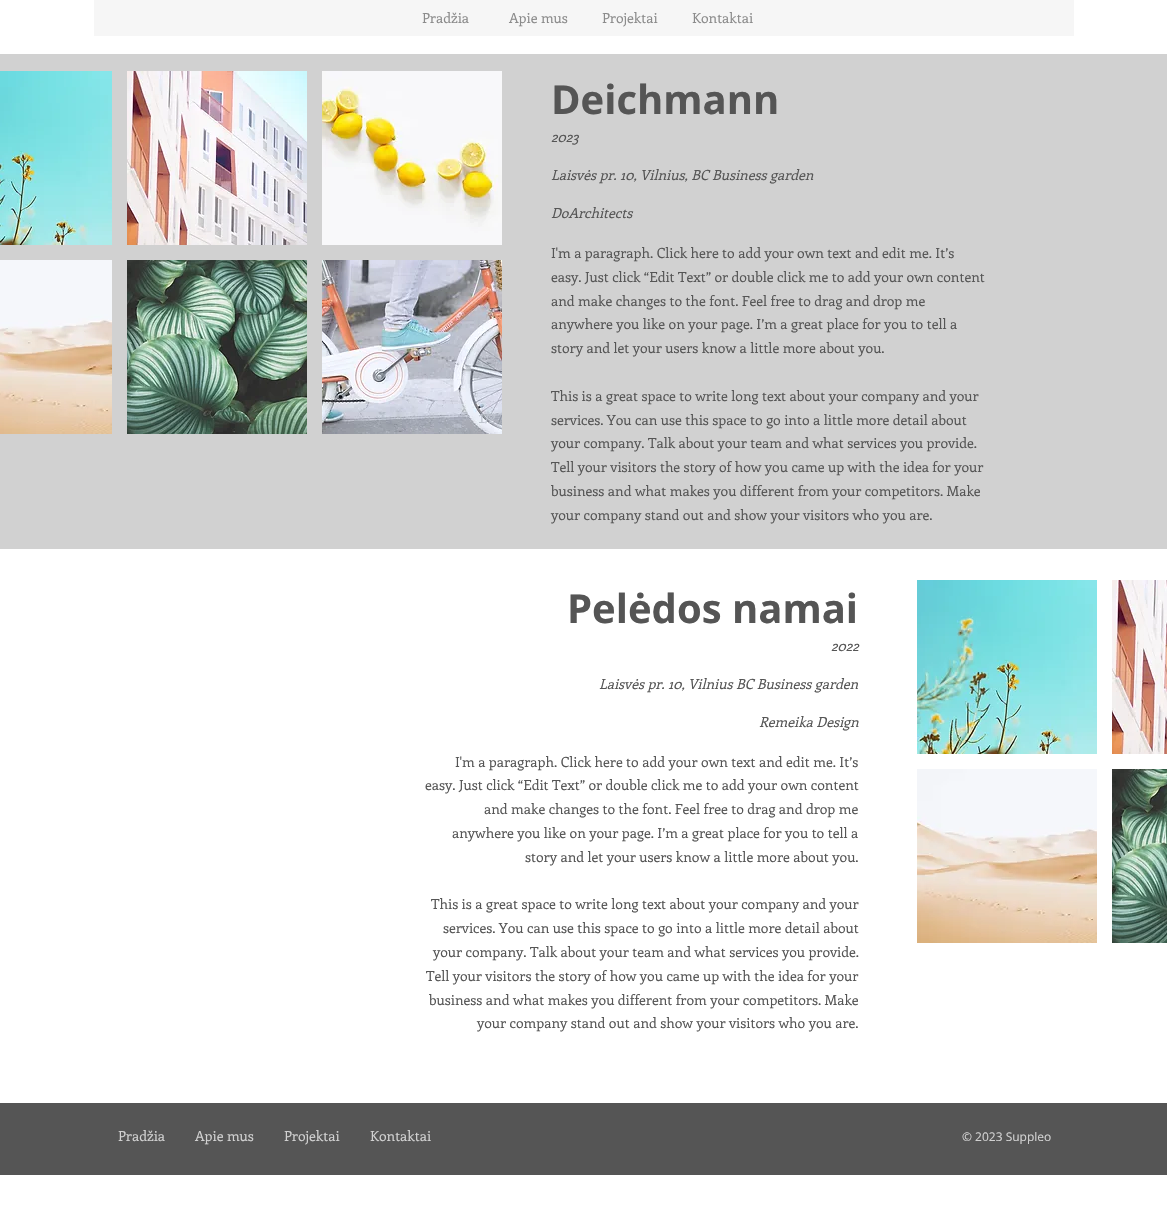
void draw(SkCanvas* canvas) {
    SkPaint paint;
    paint.setAntiAlias(true);
    auto face = [&](const char* family, int weight, float size, bool italic = false) {
        SkFontStyle style(weight, SkFontStyle::kNormal_Width,
            italic ? SkFontStyle::kItalic_Slant : SkFontStyle::kUpright_Slant);
        SkFont result(fontMgr->matchFamilyStyle(family, style), size);
        result.setSubpixel(true);
        return result;
    };
    auto write = [&](const char* s, float x, float y, const SkFont& font, SkColor color) {
        SkPaint ink(SkColor4f::FromColor(color));
        ink.setAntiAlias(true);
        canvas->drawString(s, x, y, font, ink);
    };
    auto block = [&](float x, float y, float w, float h, SkColor color) {
        SkPaint ink(SkColor4f::FromColor(color));
        ink.setAntiAlias(true);
        canvas->drawRect(SkRect::MakeXYWH(x, y, w, h), ink);
    };
    auto paste = [&](const char* path, float x, float y, float w, float h) {
        auto image = SkImages::DeferredFromEncodedData(SkData::MakeFromFileName(path));
        canvas->drawImageRect(image, SkRect::MakeXYWH(x, y, w, h), SkSamplingOptions());
    };
    canvas->clear(SK_ColorWHITE);
    block(94, 0, 980, 36, SkColorSetRGB(246, 246, 246));
    auto kFont1 = face("Enriqueta", 400, 14);
    write("Pradžia", 422, 23, kFont1, SkColorSetRGB(139, 139, 139));
    write("Apie mus", 509, 23, kFont1, SkColorSetRGB(139, 139, 139));
    write("Projektai", 602, 23, kFont1, SkColorSetRGB(139, 139, 139));
    write("Kontaktai", 692, 23, kFont1, SkColorSetRGB(139, 139, 139));
    block(0, 54, 1167, 495, SkColorSetRGB(209, 209, 209));
    paste("pic1.png", 0, 71, 112, 174);
    paste("pic2.png", 127, 71, 180, 174);
    paste("pic3.png", 322, 71, 180, 174);
    paste("pic4.png", 0, 260, 112, 174);
    paste("pic5.png", 127, 260, 180, 174);
    paste("pic6.png", 322, 260, 180, 174);
    auto kFont2 = face("Liberation Sans", 400, 13);
    write("1/2", 478, 423, kFont2, SkColorSetRGB(191, 196, 206));
    auto kFont3 = face("Open Sans", 700, 40);
    write("Deichmann", 551, 114, kFont3, SkColorSetRGB(85, 85, 85));
    auto kFont4 = face("Enriqueta", 400, 14, true);
    write("2023", 551, 142, kFont4, SkColorSetRGB(85, 85, 85));
    write("Laisvės pr. 10, Vilnius, BC Business garden", 551, 180, kFont4, SkColorSetRGB(85, 85, 85));
    write("DoArchitects", 551, 218, kFont4, SkColorSetRGB(85, 85, 85));
    write("I'm a paragraph. Click here to add your own text and edit me. It’s", 551, 258, kFont1, SkColorSetRGB(85, 85, 85));
    write("easy. Just click “Edit Text” or double click me to add your own content", 551, 282, kFont1, SkColorSetRGB(85, 85, 85));
    write("and make changes to the font. Feel free to drag and drop me", 551, 306, kFont1, SkColorSetRGB(85, 85, 85));
    write("anywhere you like on your page. I’m a great place for you to tell a", 551, 329, kFont1, SkColorSetRGB(85, 85, 85));
    write("story and let your users know a little more about you.", 551, 353, kFont1, SkColorSetRGB(85, 85, 85));
    write("This is a great space to write long text about your company and your", 551, 401, kFont1, SkColorSetRGB(85, 85, 85));
    write("services. You can use this space to go into a little more detail about", 551, 425, kFont1, SkColorSetRGB(85, 85, 85));
    write("your company. Talk about your team and what services you provide.", 551, 448, kFont1, SkColorSetRGB(85, 85, 85));
    write("Tell your visitors the story of how you came up with the idea for your", 551, 472, kFont1, SkColorSetRGB(85, 85, 85));
    write("business and what makes you different from your competitors. Make", 551, 496, kFont1, SkColorSetRGB(85, 85, 85));
    write("your company stand out and show your visitors who you are.", 551, 520, kFont1, SkColorSetRGB(85, 85, 85));
    write("Pelėdos namai", 567, 623, kFont3, SkColorSetRGB(85, 85, 85));
    write("2022", 831, 651, kFont4, SkColorSetRGB(85, 85, 85));
    write("Laisvės pr. 10, Vilnius BC Business garden", 599, 689, kFont4, SkColorSetRGB(85, 85, 85));
    write("Remeika Design", 759, 727, kFont4, SkColorSetRGB(85, 85, 85));
    write("I'm a paragraph. Click here to add your own text and edit me. It’s", 455, 767, kFont1, SkColorSetRGB(85, 85, 85));
    write("easy. Just click “Edit Text” or double click me to add your own content", 425, 790, kFont1, SkColorSetRGB(85, 85, 85));
    write("and make changes to the font. Feel free to drag and drop me", 484, 814, kFont1, SkColorSetRGB(85, 85, 85));
    write("anywhere you like on your page. I’m a great place for you to tell a", 452, 838, kFont1, SkColorSetRGB(85, 85, 85));
    write("story and let your users know a little more about you.", 525, 862, kFont1, SkColorSetRGB(85, 85, 85));
    write("This is a great space to write long text about your company and your", 431, 909, kFont1, SkColorSetRGB(85, 85, 85));
    write("services. You can use this space to go into a little more detail about", 443, 933, kFont1, SkColorSetRGB(85, 85, 85));
    write("your company. Talk about your team and what services you provide.", 433, 957, kFont1, SkColorSetRGB(85, 85, 85));
    write("Tell your visitors the story of how you came up with the idea for your", 426, 981, kFont1, SkColorSetRGB(85, 85, 85));
    write("business and what makes you different from your competitors. Make", 429, 1005, kFont1, SkColorSetRGB(85, 85, 85));
    write("your company stand out and show your visitors who you are.", 477, 1028, kFont1, SkColorSetRGB(85, 85, 85));
    paste("pic7.png", 917, 580, 180, 174);
    paste("pic8.png", 1112, 580, 55, 174);
    paste("pic9.png", 917, 769, 180, 174);
    paste("pic10.png", 1112, 769, 55, 174);
    block(0, 1103, 1167, 72, SkColorSetRGB(85, 85, 85));
    write("Pradžia", 118, 1141, kFont1, SkColorSetRGB(209, 209, 209));
    write("Apie mus", 195, 1141, kFont1, SkColorSetRGB(209, 209, 209));
    write("Projektai", 284, 1141, kFont1, SkColorSetRGB(209, 209, 209));
    write("Kontaktai", 370, 1141, kFont1, SkColorSetRGB(209, 209, 209));
    auto kFont5 = face("Open Sans", 400, 12);
    write("© 2023 Suppleo", 962, 1141, kFont5, SkColorSetRGB(209, 209, 209));
}
